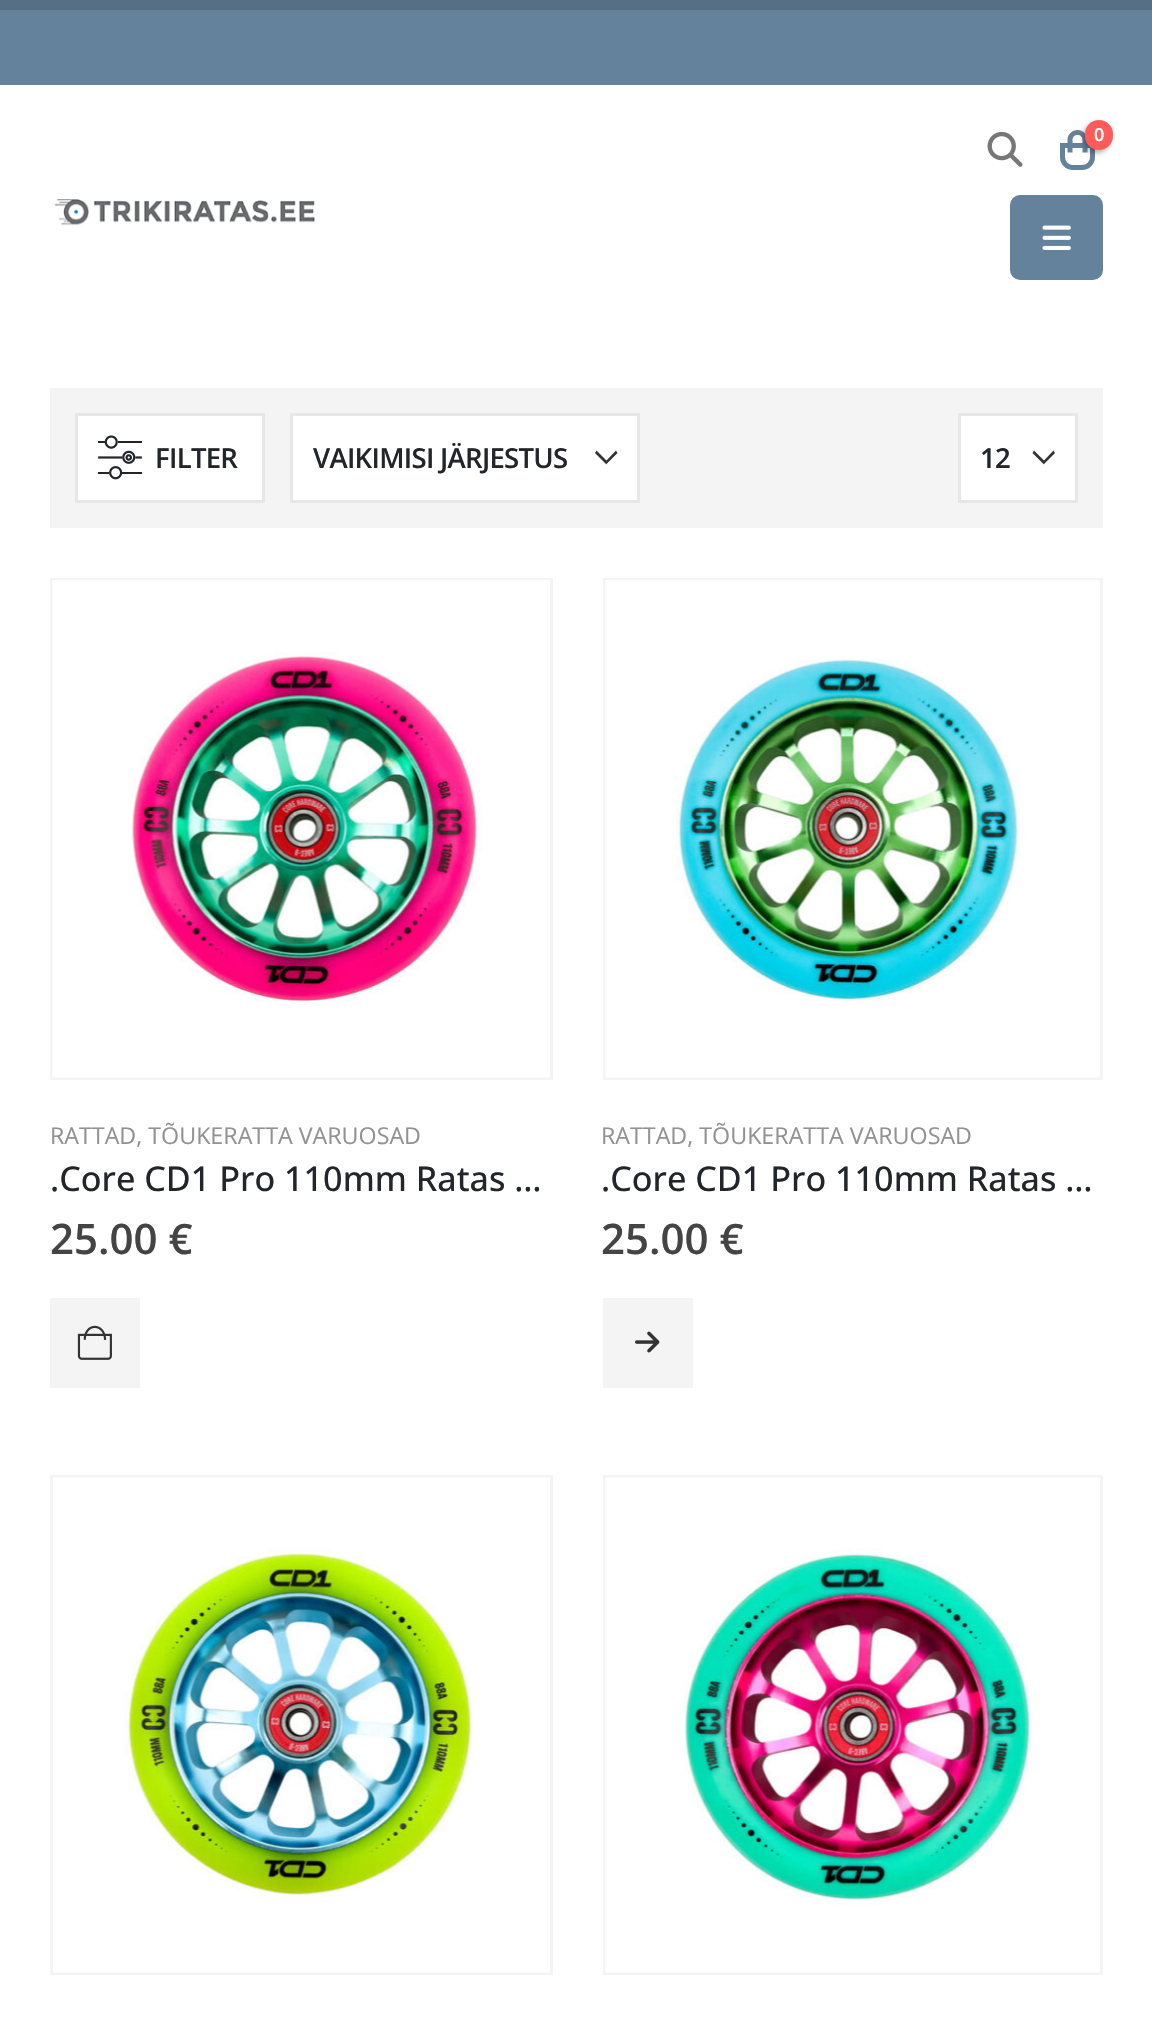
void draw(SkCanvas* canvas) {
    SkPaint paint;
    paint.setAntiAlias(true);
    auto face = [&](const char* family, int weight, float size, bool italic = false) {
        SkFontStyle style(weight, SkFontStyle::kNormal_Width,
            italic ? SkFontStyle::kItalic_Slant : SkFontStyle::kUpright_Slant);
        SkFont result(fontMgr->matchFamilyStyle(family, style), size);
        result.setSubpixel(true);
        return result;
    };
    auto write = [&](const char* s, float x, float y, const SkFont& font, SkColor color) {
        SkPaint ink(SkColor4f::FromColor(color));
        ink.setAntiAlias(true);
        canvas->drawString(s, x, y, font, ink);
    };
    auto writeSpaced = [&](const char* s, float x, float y, const SkFont& font, const SkPaint& ink, float letter, float word) {
        std::vector<SkGlyphID> glyphs(font.countText(s, strlen(s), SkTextEncoding::kUTF8));
        std::vector<float> xs(glyphs.size());
        font.textToGlyphs(s, strlen(s), SkTextEncoding::kUTF8, glyphs);
        font.getXPos(glyphs, xs, x);
        float extra = 0;
        for (size_t i = 0; i < glyphs.size(); i++) {
            xs[i] += extra;
            extra += letter + word * (glyphs[i] == font.unicharToGlyph(' '));
        }
        canvas->drawTextBlob(SkTextBlob::MakeFromPosHGlyphs(glyphs, xs, y, font), 0, 0, ink);
    };
    auto block = [&](float x, float y, float w, float h, SkColor color) {
        SkPaint ink(SkColor4f::FromColor(color));
        ink.setAntiAlias(true);
        canvas->drawRect(SkRect::MakeXYWH(x, y, w, h), ink);
    };
    auto card = [&](float x, float y, float w, float h, float radius, SkColor color) {
        SkPaint ink(SkColor4f::FromColor(color));
        ink.setAntiAlias(true);
        canvas->drawRoundRect(SkRect::MakeXYWH(x, y, w, h), radius, radius, ink);
    };
    auto paste = [&](const char* path, float x, float y, float w, float h) {
        auto image = SkImages::DeferredFromEncodedData(SkData::MakeFromFileName(path));
        canvas->drawImageRect(image, SkRect::MakeXYWH(x, y, w, h), SkSamplingOptions());
    };
    canvas->clear(SK_ColorWHITE);
    block(0, 0, 1152, 10, SkColorSetRGB(86, 111, 133));
    block(0, 10, 1152, 75, SkColorSetRGB(101, 130, 157));
    paste("pic1.png", 987, 131, 36, 36);
    paint.setStyle(SkPaint::kStroke_Style);
    paint.setStrokeWidth(5);
    paint.setColor(SkColorSetRGB(101, 130, 157));
    canvas->drawPath(SkPathBuilder().moveTo(1062.5f, 145.5f).lineTo(1092.5f, 145.5f).lineTo(1092.5f, 157).cubicTo(1092.5f, 163, 1088, 167.5f, 1082, 167.5f).lineTo(1073, 167.5f).cubicTo(1067, 167.5f, 1062.5f, 163, 1062.5f, 157).close().detach(), paint);
    paint.setStyle(SkPaint::kFill_Style);
    canvas->drawPath(SkPathBuilder(SkPathFillType::kEvenOdd).moveTo(1077.5f, 130).cubicTo(1083, 130, 1087.5f, 134.5f, 1087.5f, 140).lineTo(1087.5f, 152.5f).lineTo(1067.5f, 152.5f).lineTo(1067.5f, 140).cubicTo(1067.5f, 134.5f, 1072, 130, 1077.5f, 130).close().moveTo(1077.5f, 135).cubicTo(1080.5f, 135, 1082.5f, 137, 1082.5f, 140).lineTo(1082.5f, 152.5f).lineTo(1072.5f, 152.5f).lineTo(1072.5f, 140).cubicTo(1072.5f, 137, 1074.5f, 135, 1077.5f, 135).close().detach(), paint);
    paint.setColor(SkColorSetARGB(77, 0, 0, 0));
    paint.setMaskFilter(SkMaskFilter::MakeBlur(kNormal_SkBlurStyle, 2.5f));
    canvas->drawRoundRect(SkRect::MakeXYWH(1083, 123, 27, 30), 13.5f, 13.5f, paint);
    paint.setMaskFilter(nullptr);
    card(1085, 120, 28, 30, 14, SkColorSetRGB(255, 91, 91));
    auto kFont1 = face("Open Sans", 600, 18);
    write("0", 1094, 141, kFont1, SK_ColorWHITE);
    card(1010, 195, 93, 85, 10, SkColorSetRGB(101, 130, 157));
    paste("pic2.png", 1042, 225, 29, 25);
    paste("pic3.png", 54, 199, 261, 27);
    block(50, 388, 1053, 140, SkColorSetRGB(244, 244, 244));
    paint.setColor(SK_ColorWHITE);
    canvas->drawRect(SkRect::MakeXYWH(76.5f, 414.5f, 187, 87), paint);
    paint.setStyle(SkPaint::kStroke_Style);
    paint.setStrokeWidth(3);
    paint.setColor(SkColorSetRGB(231, 231, 231));
    canvas->drawRect(SkRect::MakeXYWH(76.5f, 414.5f, 187, 87), paint);
    paste("pic4.png", 98, 435, 44, 45);
    auto kFont2 = face("Open Sans", 600, 27.5f);
    paint.setStyle(SkPaint::kFill_Style);
    paint.setColor(SkColorSetRGB(34, 37, 41));
    writeSpaced("FILTER", 155, 468, kFont2, paint, -0.7f, 0);
    block(293, 416, 344, 84, SK_ColorWHITE);
    paint.setColor(SkColorSetRGB(51, 51, 51));
    canvas->drawPath(SkPathBuilder(SkPathFillType::kEvenOdd).moveTo(606.5f, 464).lineTo(617.5f, 453).lineTo(616, 450.5f).lineTo(606.5f, 460.5f).lineTo(596.5f, 450.5f).lineTo(595, 453).lineTo(606.5f, 464.5f).close().detach(), paint);
    paint.setStyle(SkPaint::kStroke_Style);
    paint.setColor(SkColorSetRGB(231, 231, 231));
    canvas->drawRect(SkRect::MakeXYWH(291.5f, 414.5f, 347, 87), paint);
    paint.setStyle(SkPaint::kFill_Style);
    paint.setColor(SkColorSetRGB(34, 37, 41));
    writeSpaced("VAIKIMISI JÄRJESTUS", 313, 468, kFont2, paint, -0.7f, 0);
    block(961, 416, 114, 84, SK_ColorWHITE);
    paint.setColor(SkColorSetRGB(51, 51, 51));
    canvas->drawPath(SkPathBuilder(SkPathFillType::kEvenOdd).moveTo(1044, 464).lineTo(1055, 453).lineTo(1053.5f, 450.5f).lineTo(1044, 460.5f).lineTo(1034, 450.5f).lineTo(1032.5f, 453).lineTo(1044, 464.5f).close().detach(), paint);
    paint.setStyle(SkPaint::kStroke_Style);
    paint.setColor(SkColorSetRGB(231, 231, 231));
    canvas->drawRect(SkRect::MakeXYWH(959.5f, 414.5f, 117, 87), paint);
    paint.setStyle(SkPaint::kFill_Style);
    paint.setColor(SkColorSetRGB(34, 37, 41));
    writeSpaced("12", 980, 468, kFont2, paint, -0.7f, 0);
    paint.setStyle(SkPaint::kStroke_Style);
    paint.setColor(SkColorSetRGB(244, 244, 244));
    canvas->drawRect(SkRect::MakeXYWH(51.5f, 579.5f, 500, 499), paint);
    paste("pic5.png", 52, 580, 498, 498);
    auto kFont3 = face("Open Sans", 400, 23.25f);
    write("RATTAD, TÕUKERATTA VARUOSAD", 50, 1144, kFont3, SkColorSetRGB(146, 146, 146));
    auto kFont4 = face("Open Sans", 500, 34.2f);
    write(".Core CD1 Pro 110mm Ratas …", 50, 1191, kFont4, SkColorSetRGB(34, 37, 41));
    auto kFont5 = face("Open Sans", 600, 42);
    write("25.00 €", 50, 1254, kFont5, SkColorSetRGB(68, 68, 68));
    block(50, 1298, 90, 90, SkColorSetRGB(244, 244, 244));
    paste("pic6.png", 77, 1325, 35, 35);
    canvas->drawRect(SkRect::MakeXYWH(604.5f, 579.5f, 497, 499), paint);
    paste("pic7.png", 605, 580, 495, 498);
    write("RATTAD, TÕUKERATTA VARUOSAD", 601, 1144, kFont3, SkColorSetRGB(146, 146, 146));
    write(".Core CD1 Pro 110mm Ratas …", 601, 1191, kFont4, SkColorSetRGB(34, 37, 41));
    write("25.00 €", 601, 1254, kFont5, SkColorSetRGB(68, 68, 68));
    block(603, 1298, 90, 90, SkColorSetRGB(244, 244, 244));
    paste("pic8.png", 635, 1331, 25, 22);
    canvas->drawRect(SkRect::MakeXYWH(51.5f, 1476.5f, 500, 497), paint);
    paste("pic9.png", 53, 1477, 497, 496);
    canvas->drawRect(SkRect::MakeXYWH(604.5f, 1476.5f, 497, 497), paint);
    paste("pic10.png", 605, 1477, 495, 496);
}
